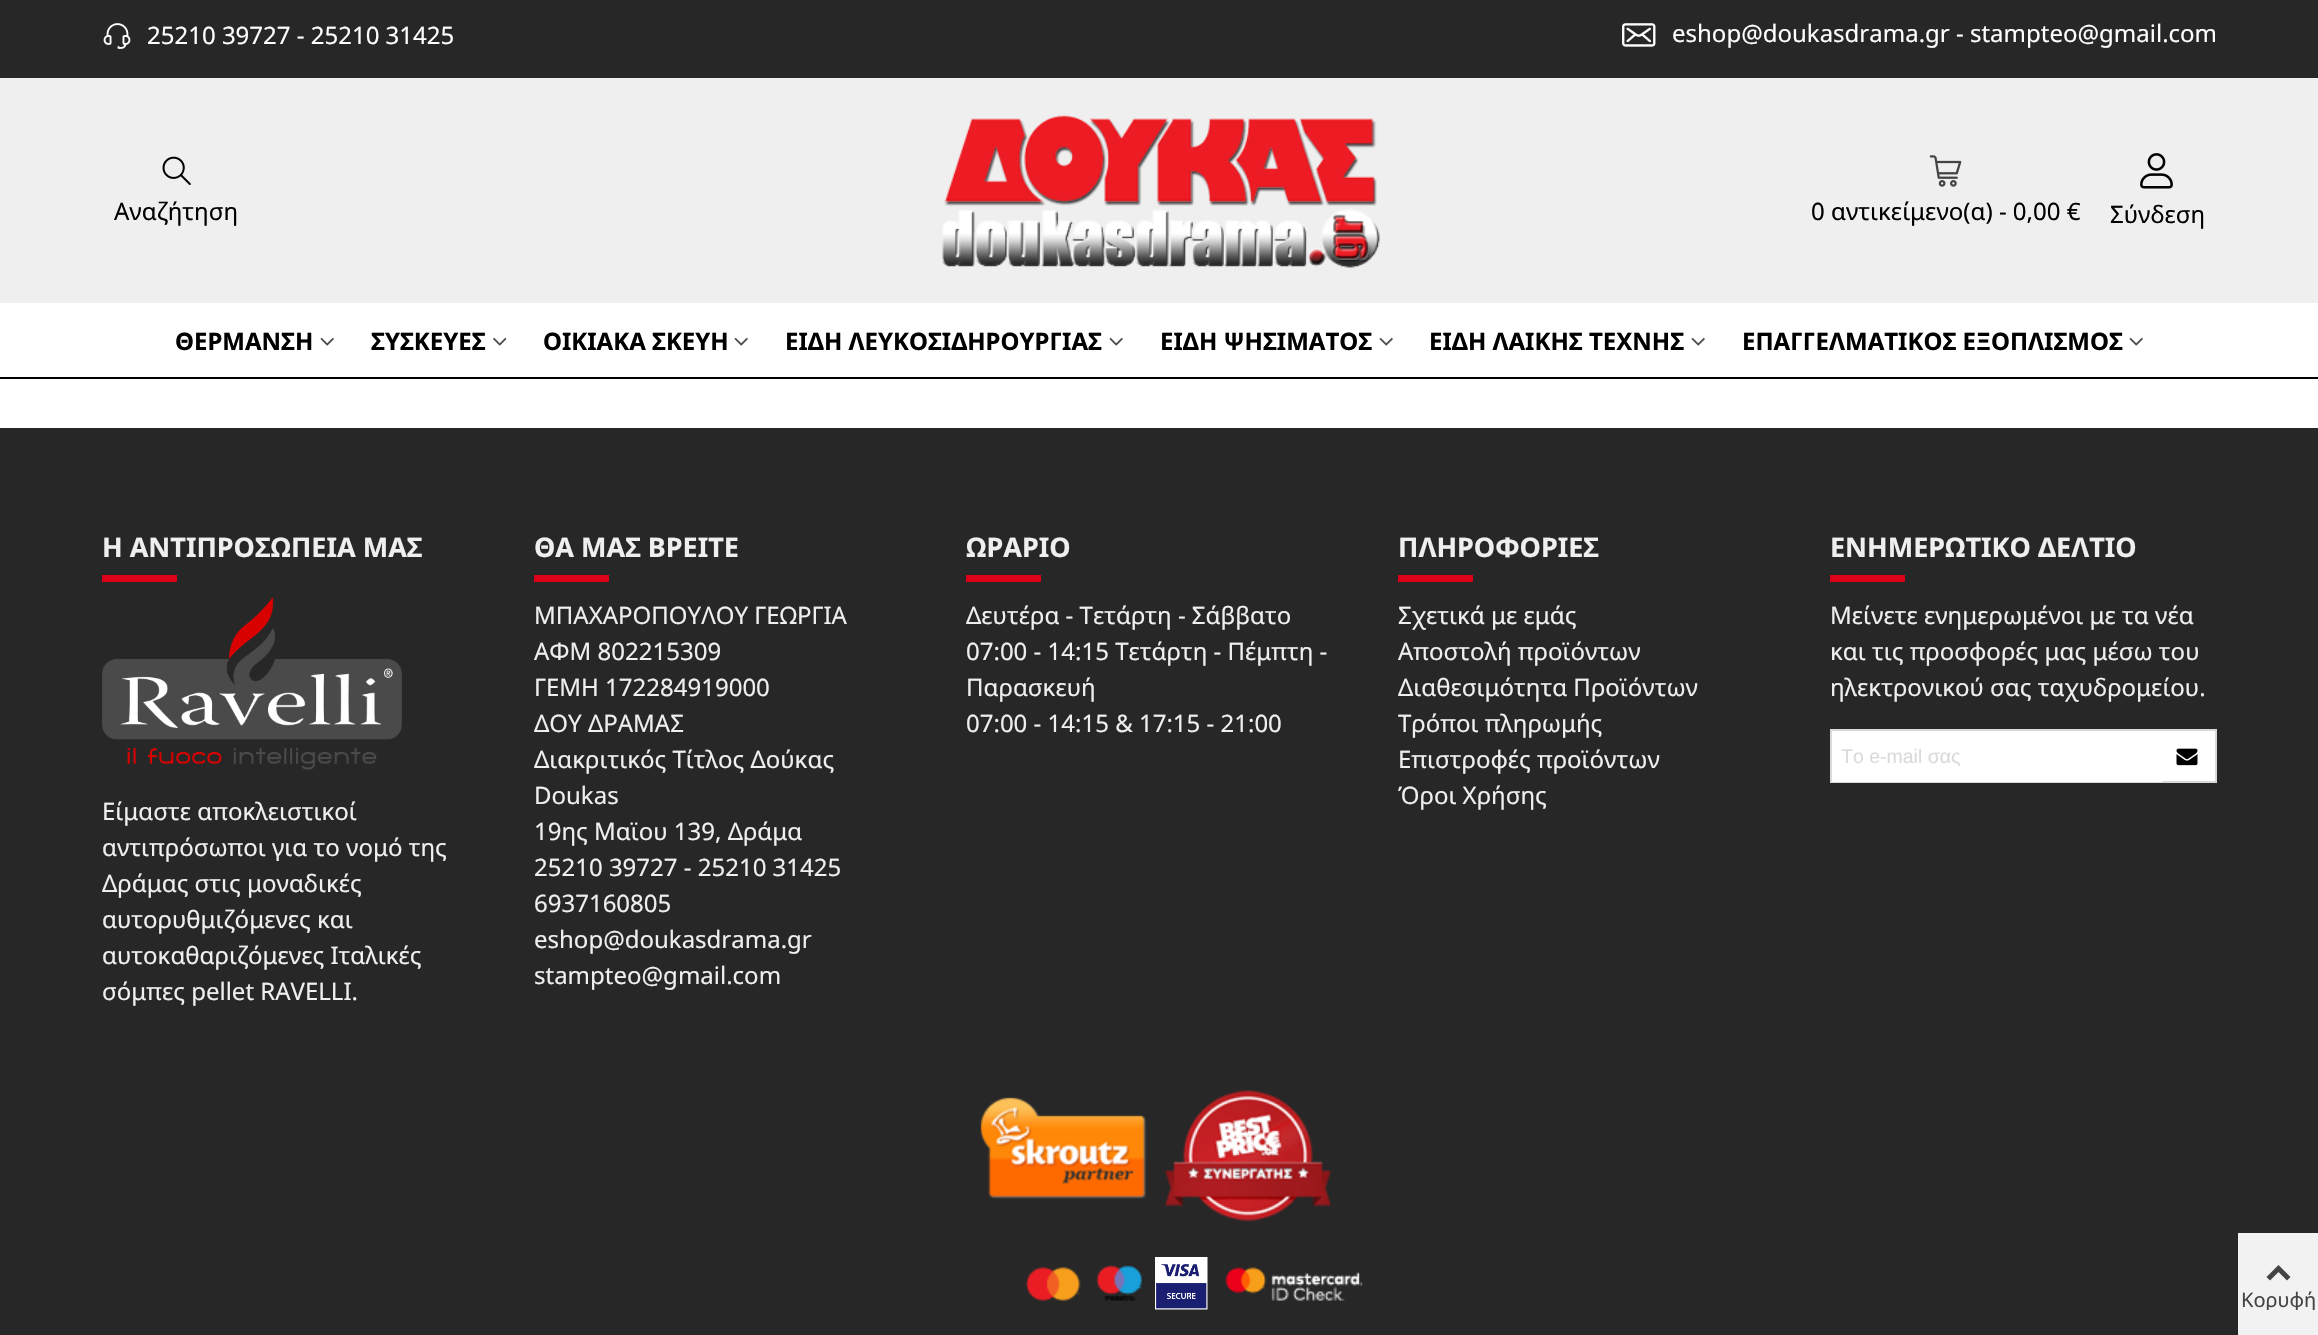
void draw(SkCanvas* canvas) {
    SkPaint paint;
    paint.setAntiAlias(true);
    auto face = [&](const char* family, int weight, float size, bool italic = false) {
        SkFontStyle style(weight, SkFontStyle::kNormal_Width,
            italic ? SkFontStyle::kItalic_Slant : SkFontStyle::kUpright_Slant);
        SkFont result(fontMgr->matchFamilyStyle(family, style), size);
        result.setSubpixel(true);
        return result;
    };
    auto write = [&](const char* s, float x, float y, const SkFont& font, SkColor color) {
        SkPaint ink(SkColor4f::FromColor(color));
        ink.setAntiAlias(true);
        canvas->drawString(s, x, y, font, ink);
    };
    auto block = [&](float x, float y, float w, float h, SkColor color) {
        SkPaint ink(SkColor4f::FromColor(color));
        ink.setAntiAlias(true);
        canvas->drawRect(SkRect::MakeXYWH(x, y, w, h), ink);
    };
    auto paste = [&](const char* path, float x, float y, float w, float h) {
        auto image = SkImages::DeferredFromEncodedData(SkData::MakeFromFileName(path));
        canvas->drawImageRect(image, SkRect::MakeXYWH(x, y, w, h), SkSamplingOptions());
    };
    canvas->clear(SK_ColorWHITE);
    block(0, 78, 2318, 225, SkColorSetRGB(239, 239, 239));
    block(0, 0, 2318, 78, SkColorSetRGB(39, 39, 39));
    paste("pic1.png", 103, 23, 28, 26);
    auto kFont1 = face("Noto Sans", 400, 24);
    write("25210 39727 - 25210 31425", 147, 44, kFont1, SK_ColorWHITE);
    paste("pic2.png", 1622, 23, 34, 24);
    write("eshop@doukasdrama.gr - stampteo@gmail.com", 1672, 42, kFont1, SK_ColorWHITE);
    paste("pic3.png", 162, 156, 29, 29);
    write("Αναζήτηση", 114, 220, kFont1, SK_ColorBLACK);
    paste("pic4.png", 942, 114, 438, 154);
    paste("pic5.png", 1929, 155, 33, 32);
    write("0 αντικείμενο(α) - 0,00 €", 1811, 220, kFont1, SK_ColorBLACK);
    paste("pic6.png", 2140, 153, 33, 36);
    write("Σύνδεση", 2110, 223, kFont1, SK_ColorBLACK);
    block(0, 377, 2318, 2, SK_ColorBLACK);
    auto kFont2 = face("Noto Sans", 700, 24);
    write("ΘΕΡΜΑΝΣΗ", 175, 350, kFont2, SK_ColorBLACK);
    paste("pic7.png", 320, 337, 14, 9);
    write("ΣΥΣΚΕΥΕΣ", 371, 350, kFont2, SK_ColorBLACK);
    paste("pic8.png", 493, 337, 14, 9);
    write("ΟΙΚΙΑΚΑ ΣΚΕΥΗ", 543, 350, kFont2, SK_ColorBLACK);
    paste("pic7.png", 734, 337, 14, 9);
    write("ΕΙΔΗ ΛΕΥΚΟΣΙΔΗΡΟΥΡΓΙΑΣ", 785, 350, kFont2, SK_ColorBLACK);
    paste("pic7.png", 1109, 337, 14, 9);
    write("ΕΙΔΗ ΨΗΣΙΜΑΤΟΣ", 1160, 350, kFont2, SK_ColorBLACK);
    paste("pic7.png", 1379, 337, 14, 9);
    write("ΕΙΔΗ ΛΑΙΚΗΣ ΤΕΧΝΗΣ", 1429, 350, kFont2, SK_ColorBLACK);
    paste("pic7.png", 1691, 337, 14, 9);
    write("ΕΠΑΓΓΕΛΜΑΤΙΚΟΣ ΕΞΟΠΛΙΣΜΟΣ", 1742, 350, kFont2, SK_ColorBLACK);
    paste("pic7.png", 2129, 337, 14, 9);
    block(0, 428, 2318, 907, SkColorSetRGB(39, 39, 39));
    auto kFont3 = face("Noto Sans", 700, 27);
    write("Η ΑΝΤΙΠΡΟΣΩΠΕΙΑ ΜΑΣ", 102, 557, kFont3, SkColorSetRGB(239, 239, 239));
    block(102, 575, 75, 7, SkColorSetRGB(221, 0, 24));
    paste("pic9.png", 102, 597, 300, 173);
    write("Είμαστε αποκλειστικοί", 102, 820, kFont1, SkColorSetRGB(239, 239, 239));
    write("αντιπρόσωποι για το νομό της", 102, 856, kFont1, SkColorSetRGB(239, 239, 239));
    write("Δράμας στις μοναδικές", 102, 892, kFont1, SkColorSetRGB(239, 239, 239));
    write("αυτορυθμιζόμενες και", 102, 928, kFont1, SkColorSetRGB(239, 239, 239));
    write("αυτοκαθαριζόμενες Ιταλικές", 102, 964, kFont1, SkColorSetRGB(239, 239, 239));
    write("σόμπες pellet RAVELLI.", 102, 1000, kFont1, SkColorSetRGB(239, 239, 239));
    write("ΘΑ ΜΑΣ ΒΡΕΙΤΕ", 534, 557, kFont3, SkColorSetRGB(239, 239, 239));
    block(534, 575, 75, 7, SkColorSetRGB(221, 0, 24));
    write("ΜΠΑΧΑΡΟΠΟΥΛΟΥ ΓΕΩΡΓΙΑ", 534, 624, kFont1, SkColorSetRGB(239, 239, 239));
    write("ΑΦΜ 802215309", 534, 660, kFont1, SkColorSetRGB(239, 239, 239));
    write("ΓΕΜΗ 172284919000", 534, 696, kFont1, SkColorSetRGB(239, 239, 239));
    write("ΔΟΥ ΔΡΑΜΑΣ", 534, 732, kFont1, SkColorSetRGB(239, 239, 239));
    write("Διακριτικός Τίτλος Δούκας", 534, 768, kFont1, SkColorSetRGB(239, 239, 239));
    write("Doukas", 534, 804, kFont1, SkColorSetRGB(239, 239, 239));
    write("19ης Μαϊου 139, Δράμα", 534, 840, kFont1, SkColorSetRGB(239, 239, 239));
    write("25210 39727 - 25210 31425", 534, 876, kFont1, SkColorSetRGB(239, 239, 239));
    write("6937160805", 534, 912, kFont1, SkColorSetRGB(239, 239, 239));
    write("eshop@doukasdrama.gr", 534, 948, kFont1, SkColorSetRGB(239, 239, 239));
    write("stampteo@gmail.com", 534, 984, kFont1, SkColorSetRGB(239, 239, 239));
    write("ΩΡΑΡΙΟ", 966, 557, kFont3, SkColorSetRGB(239, 239, 239));
    block(966, 575, 75, 7, SkColorSetRGB(221, 0, 24));
    write("Δευτέρα - Τετάρτη - Σάββατο", 966, 624, kFont1, SkColorSetRGB(239, 239, 239));
    write("07:00 - 14:15 Τετάρτη - Πέμπτη -", 966, 660, kFont1, SkColorSetRGB(239, 239, 239));
    write("Παρασκευή", 966, 696, kFont1, SkColorSetRGB(239, 239, 239));
    write("07:00 - 14:15 & 17:15 - 21:00", 966, 732, kFont1, SkColorSetRGB(239, 239, 239));
    write("ΠΛΗΡΟΦΟΡΙΕΣ", 1398, 557, kFont3, SkColorSetRGB(239, 239, 239));
    block(1398, 575, 75, 7, SkColorSetRGB(221, 0, 24));
    write("Σχετικά με εμάς", 1398, 624, kFont1, SkColorSetRGB(239, 239, 239));
    write("Αποστολή προϊόντων", 1398, 660, kFont1, SkColorSetRGB(239, 239, 239));
    write("Διαθεσιμότητα Προϊόντων", 1398, 696, kFont1, SkColorSetRGB(239, 239, 239));
    write("Τρόποι πληρωμής", 1398, 732, kFont1, SkColorSetRGB(239, 239, 239));
    write("Επιστροφές προϊόντων", 1398, 768, kFont1, SkColorSetRGB(239, 239, 239));
    write("Όροι Χρήσης", 1398, 804, kFont1, SkColorSetRGB(239, 239, 239));
    write("ΕΝΗΜΕΡΩΤΙΚΟ ΔΕΛΤΙΟ", 1830, 557, kFont3, SkColorSetRGB(239, 239, 239));
    block(1830, 575, 75, 7, SkColorSetRGB(221, 0, 24));
    write("Μείνετε ενημερωμένοι με τα νέα", 1830, 624, kFont1, SkColorSetRGB(239, 239, 239));
    write("και τις προσφορές μας μέσω του", 1830, 660, kFont1, SkColorSetRGB(239, 239, 239));
    write("ηλεκτρονικού σας ταχυδρομείου.", 1830, 696, kFont1, SkColorSetRGB(239, 239, 239));
    block(2162, 731, 53, 50, SK_ColorWHITE);
    paint.setStyle(SkPaint::kStroke_Style);
    paint.setStrokeWidth(2);
    paint.setColor(SkColorSetRGB(217, 217, 217));
    canvas->drawRect(SkRect::MakeXYWH(1831, 730, 385, 52), paint);
    block(1832, 731, 330, 51, SK_ColorWHITE);
    auto kFont4 = face("Liberation Sans", 400, 19.5f);
    write("Το e-mail σας", 1841, 763, kFont4, SkColorSetRGB(218, 218, 218));
    paste("pic10.png", 2176, 748, 22, 18);
    paste("pic11.png", 980, 1090, 351, 132);
    paste("pic12.png", 1025, 1267, 56, 34);
    paste("pic13.png", 1096, 1265, 46, 36);
    paste("pic14.png", 1155, 1257, 53, 53);
    paste("pic15.png", 1225, 1267, 138, 34);
    block(2238, 1233, 80, 102, SkColorSetRGB(242, 242, 242));
    paint.setStyle(SkPaint::kFill_Style);
    paint.setColor(SkColorSetRGB(68, 68, 68));
    canvas->drawPath(SkPathBuilder().moveTo(2266.5f, 1277).lineTo(2278.5f, 1265).lineTo(2290.5f, 1277).lineTo(2287, 1280.5f).lineTo(2278.5f, 1272).lineTo(2270, 1280.5f).close().detach(), paint);
    canvas->save();
    canvas->clipRect(SkRect::MakeXYWH(2238, 1289, 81, 21));
    auto kFont5 = face("Noto Sans", 400, 20);
    write("Κορυφή", 2241, 1307, kFont5, SkColorSetRGB(68, 68, 68));
    canvas->restore();
}
